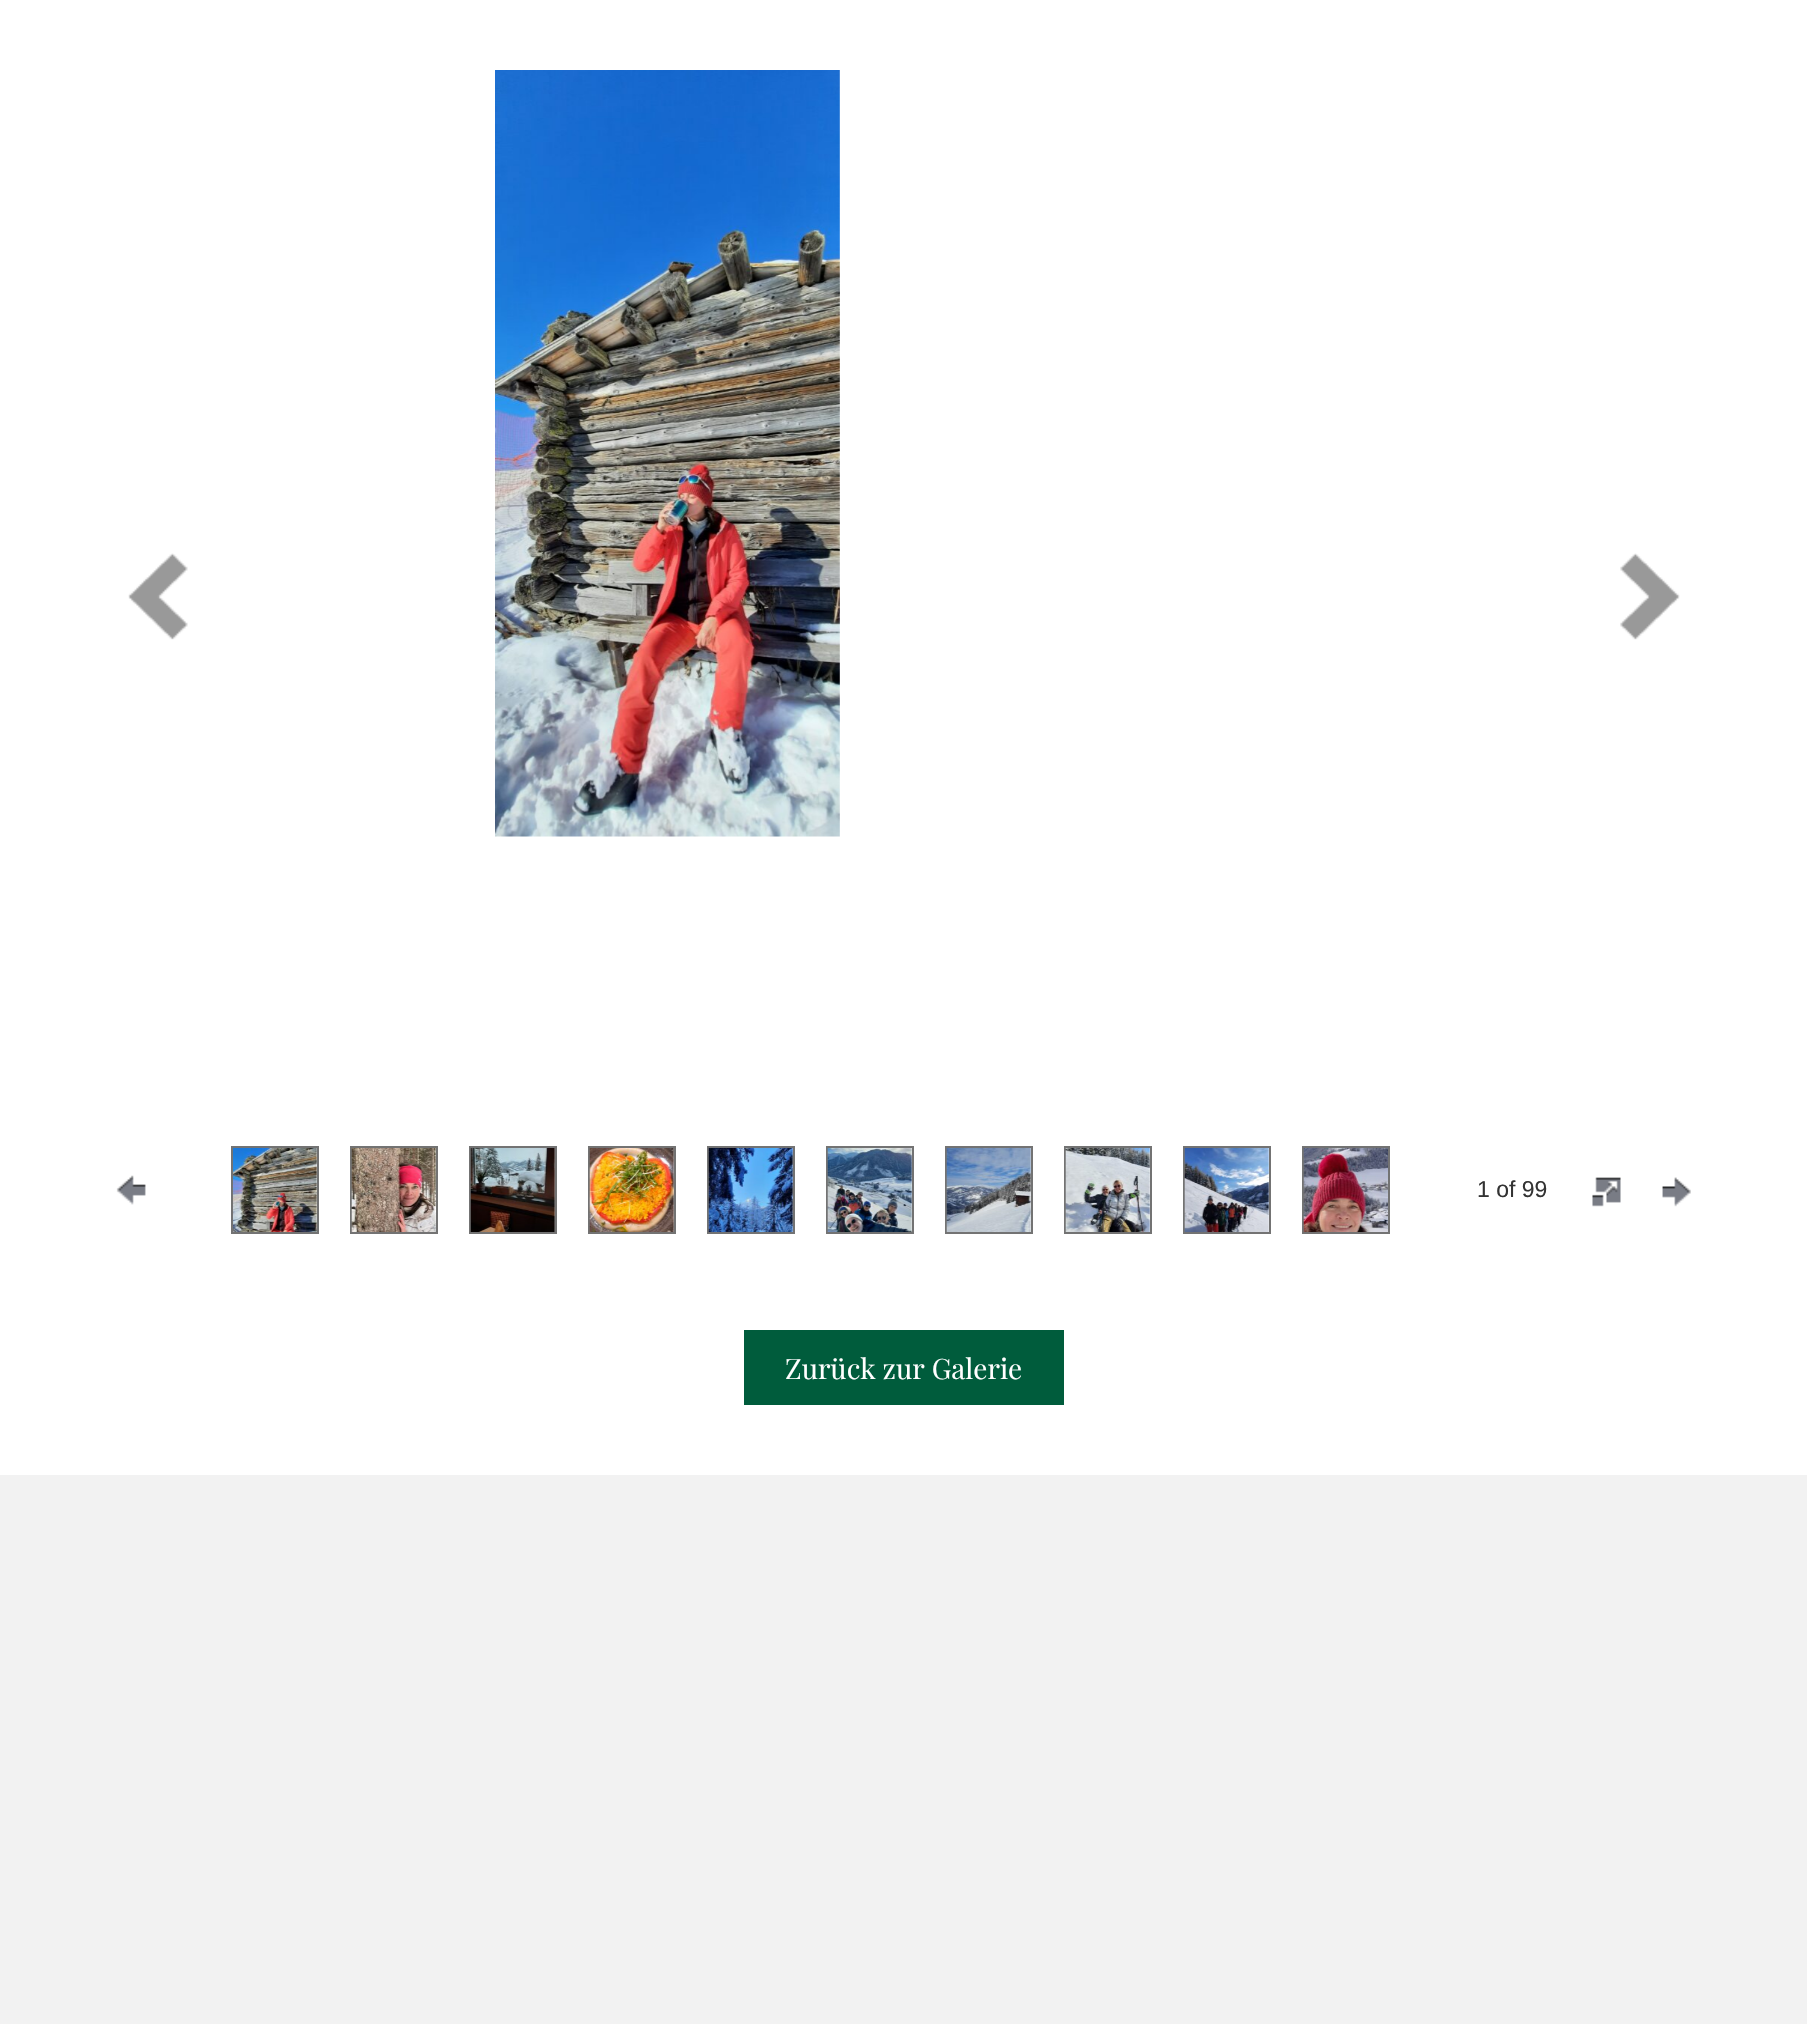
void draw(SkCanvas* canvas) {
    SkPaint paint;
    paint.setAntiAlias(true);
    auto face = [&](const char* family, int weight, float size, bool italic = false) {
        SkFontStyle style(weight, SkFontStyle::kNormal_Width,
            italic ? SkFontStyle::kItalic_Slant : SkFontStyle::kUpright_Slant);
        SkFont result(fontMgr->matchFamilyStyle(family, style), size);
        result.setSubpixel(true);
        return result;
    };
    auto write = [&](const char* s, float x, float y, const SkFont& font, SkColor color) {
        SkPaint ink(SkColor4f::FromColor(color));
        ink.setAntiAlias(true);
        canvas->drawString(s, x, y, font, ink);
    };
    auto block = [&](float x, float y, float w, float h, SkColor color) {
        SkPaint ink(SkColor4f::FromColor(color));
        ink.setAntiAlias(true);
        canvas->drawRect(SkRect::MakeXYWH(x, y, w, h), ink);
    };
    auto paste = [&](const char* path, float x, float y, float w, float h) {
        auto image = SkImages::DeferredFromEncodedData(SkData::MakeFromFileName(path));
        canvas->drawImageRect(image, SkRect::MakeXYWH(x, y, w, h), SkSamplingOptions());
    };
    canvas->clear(SkColorSetRGB(242, 242, 242));
    block(0, 0, 1807, 1475, SK_ColorWHITE);
    paste("pic1.png", 128, 553, 60, 87);
    paste("pic2.png", 495, 70, 345, 767);
    paste("pic3.png", 1620, 553, 60, 87);
    paste("pic4.png", 116, 1175, 30, 30);
    paint.setStyle(SkPaint::kStroke_Style);
    paint.setStrokeWidth(2);
    paint.setColor(SkColorSetRGB(115, 115, 115));
    canvas->drawRect(SkRect::MakeXYWH(232, 1147, 86, 86), paint);
    paste("pic5.png", 233, 1148, 84, 84);
    canvas->drawRect(SkRect::MakeXYWH(351, 1147, 86, 86), paint);
    paste("pic6.png", 351, 1148, 85, 84);
    canvas->drawRect(SkRect::MakeXYWH(470, 1147, 86, 86), paint);
    paste("pic7.png", 470, 1148, 85, 84);
    canvas->drawRect(SkRect::MakeXYWH(589, 1147, 86, 86), paint);
    paste("pic8.png", 589, 1148, 85, 84);
    canvas->drawRect(SkRect::MakeXYWH(708, 1147, 86, 86), paint);
    paste("pic9.png", 708, 1148, 85, 84);
    canvas->drawRect(SkRect::MakeXYWH(827, 1147, 86, 86), paint);
    paste("pic10.png", 827, 1148, 85, 84);
    canvas->drawRect(SkRect::MakeXYWH(946, 1147, 86, 86), paint);
    paste("pic11.png", 946, 1148, 85, 84);
    canvas->drawRect(SkRect::MakeXYWH(1065, 1147, 86, 86), paint);
    paste("pic12.png", 1065, 1148, 85, 84);
    canvas->drawRect(SkRect::MakeXYWH(1184, 1147, 86, 86), paint);
    paste("pic13.png", 1184, 1148, 85, 84);
    canvas->drawRect(SkRect::MakeXYWH(1303, 1147, 86, 86), paint);
    paste("pic14.png", 1303, 1148, 85, 84);
    auto kFont1 = face("Liberation Sans", 400, 23);
    write("1 of 99", 1477, 1197, kFont1, SkColorSetRGB(51, 51, 51));
    paste("pic15.png", 1592, 1177, 29, 30);
    paste("pic16.png", 1662, 1177, 29, 30);
    block(744, 1330, 320, 75, SkColorSetRGB(0, 92, 60));
    auto kFont2 = face("Playfair Display", 400, 28);
    write("Zurück zur Galerie", 785, 1379, kFont2, SK_ColorWHITE);
}
